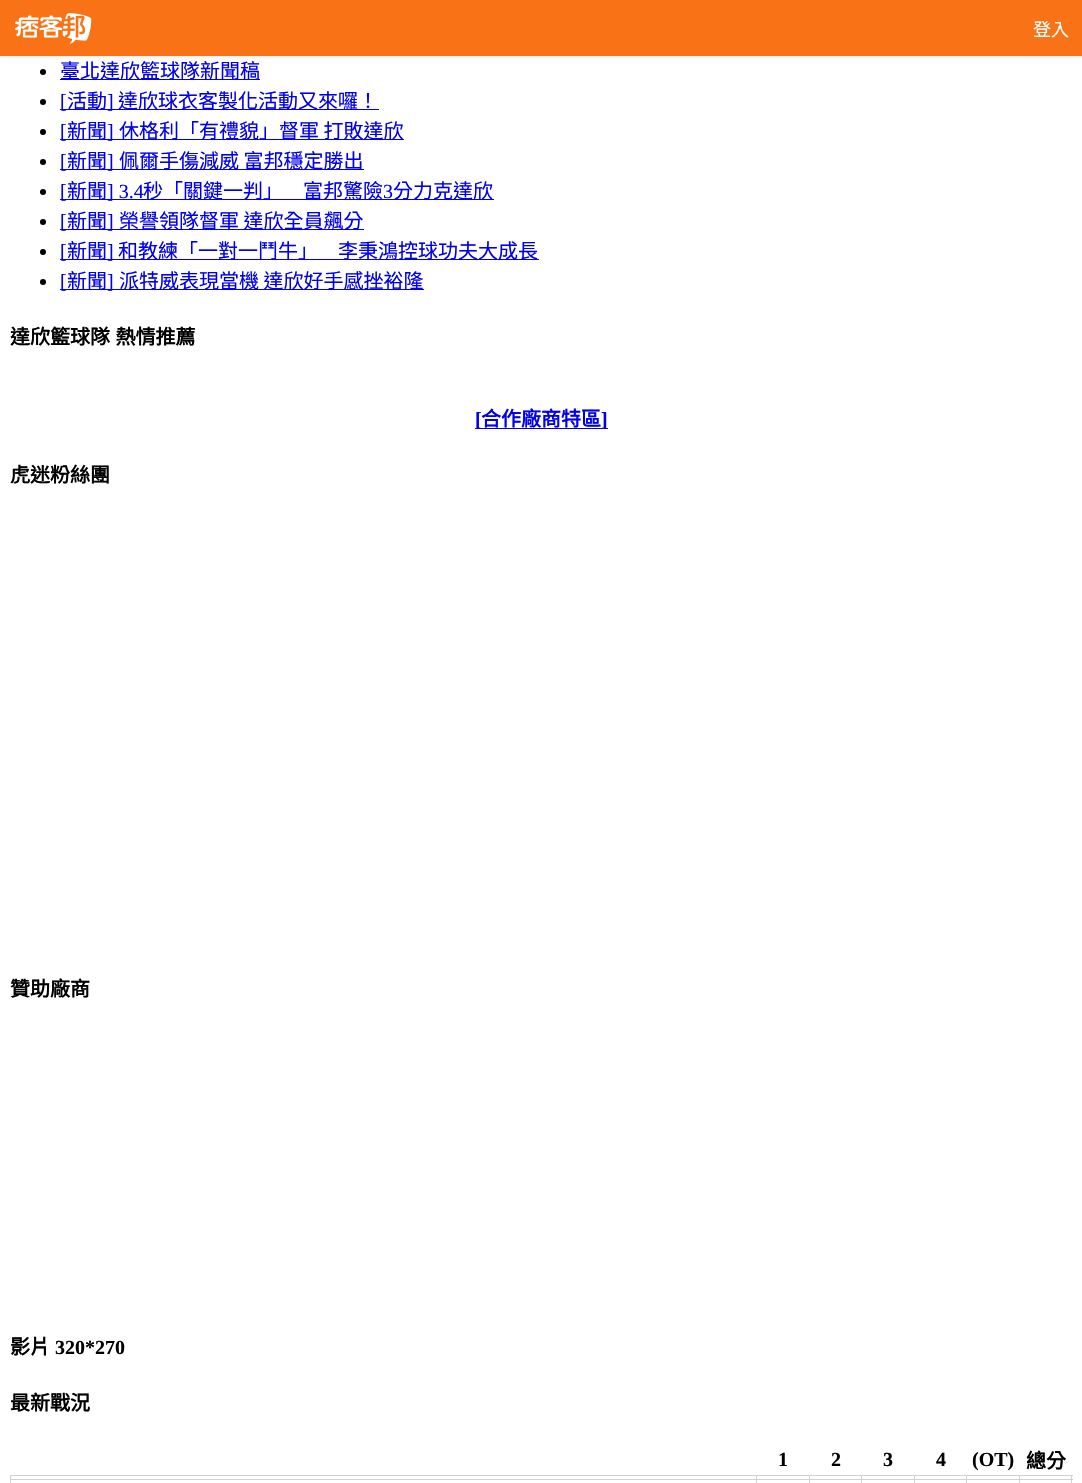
void draw(SkCanvas* canvas) {
    SkPaint paint;
    paint.setAntiAlias(true);
    auto face = [&](const char* family, int weight, float size, bool italic = false) {
        SkFontStyle style(weight, SkFontStyle::kNormal_Width,
            italic ? SkFontStyle::kItalic_Slant : SkFontStyle::kUpright_Slant);
        SkFont result(fontMgr->matchFamilyStyle(family, style), size);
        result.setSubpixel(true);
        return result;
    };
    auto write = [&](const char* s, float x, float y, const SkFont& font, SkColor color) {
        SkPaint ink(SkColor4f::FromColor(color));
        ink.setAntiAlias(true);
        canvas->drawString(s, x, y, font, ink);
    };
    auto writeSpaced = [&](const char* s, float x, float y, const SkFont& font, const SkPaint& ink, float letter, float word) {
        std::vector<SkGlyphID> glyphs(font.countText(s, strlen(s), SkTextEncoding::kUTF8));
        std::vector<float> xs(glyphs.size());
        font.textToGlyphs(s, strlen(s), SkTextEncoding::kUTF8, glyphs);
        font.getXPos(glyphs, xs, x);
        float extra = 0;
        for (size_t i = 0; i < glyphs.size(); i++) {
            xs[i] += extra;
            extra += letter + word * (glyphs[i] == font.unicharToGlyph(' '));
        }
        canvas->drawTextBlob(SkTextBlob::MakeFromPosHGlyphs(glyphs, xs, y, font), 0, 0, ink);
    };
    auto block = [&](float x, float y, float w, float h, SkColor color) {
        SkPaint ink(SkColor4f::FromColor(color));
        ink.setAntiAlias(true);
        canvas->drawRect(SkRect::MakeXYWH(x, y, w, h), ink);
    };
    auto paste = [&](const char* path, float x, float y, float w, float h) {
        auto image = SkImages::DeferredFromEncodedData(SkData::MakeFromFileName(path));
        canvas->drawImageRect(image, SkRect::MakeXYWH(x, y, w, h), SkSamplingOptions());
    };
    canvas->clear(SK_ColorWHITE);
    paint.setColor(SkColorSetARGB(13, 0, 0, 0));
    paint.setMaskFilter(SkMaskFilter::MakeBlur(kNormal_SkBlurStyle, 1));
    canvas->drawRect(SkRect::MakeXYWH(0, 1, 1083, 57), paint);
    paint.setMaskFilter(nullptr);
    block(0, 0, 1082, 56, SkColorSetRGB(249, 115, 22));
    paste("pic1.png", 15, 13, 77, 31);
    auto kFont1 = face("Noto Sans CJK TC", 400, 18);
    write("登入", 1033, 36, kFont1, SK_ColorWHITE);
    paint.setColor(SK_ColorBLACK);
    canvas->drawCircle(43, 72, 3, paint);
    block(60, 79, 200, 1, SkColorSetRGB(0, 0, 238));
    auto kFont2 = face("Noto Sans CJK TC", 400, 20);
    write("臺北達欣籃球隊新聞稿", 60, 78, kFont2, SkColorSetRGB(0, 0, 238));
    canvas->drawCircle(43, 102, 3, paint);
    block(60, 109, 319, 1, SkColorSetRGB(0, 0, 238));
    auto kFont3 = face("Liberation Serif", 400, 20);
    write("[", 60, 108, kFont3, SkColorSetRGB(0, 0, 238));
    write("活動", 67, 108, kFont2, SkColorSetRGB(0, 0, 238));
    write("]", 107, 108, kFont3, SkColorSetRGB(0, 0, 238));
    write("達欣球衣客製化活動又來囉！", 118, 108, kFont2, SkColorSetRGB(0, 0, 238));
    canvas->drawCircle(43, 132, 3, paint);
    block(60, 139, 344, 1, SkColorSetRGB(0, 0, 238));
    write("[", 60, 138, kFont3, SkColorSetRGB(0, 0, 238));
    write("新聞", 67, 138, kFont2, SkColorSetRGB(0, 0, 238));
    write("]", 107, 138, kFont3, SkColorSetRGB(0, 0, 238));
    write("休格利「有禮貌」督軍 打敗達欣", 119, 138, kFont2, SkColorSetRGB(0, 0, 238));
    canvas->drawCircle(43, 162, 3, paint);
    block(60, 169, 304, 1, SkColorSetRGB(0, 0, 238));
    write("[", 60, 168, kFont3, SkColorSetRGB(0, 0, 238));
    write("新聞", 67, 168, kFont2, SkColorSetRGB(0, 0, 238));
    write("]", 107, 168, kFont3, SkColorSetRGB(0, 0, 238));
    write("佩爾手傷減威 富邦穩定勝出", 119, 168, kFont2, SkColorSetRGB(0, 0, 238));
    canvas->drawCircle(43, 192, 3, paint);
    block(60, 199, 434, 1, SkColorSetRGB(0, 0, 238));
    write("[", 60, 198, kFont3, SkColorSetRGB(0, 0, 238));
    write("新聞", 67, 198, kFont2, SkColorSetRGB(0, 0, 238));
    write("] 3.4", 107, 198, kFont3, SkColorSetRGB(0, 0, 238));
    write("秒「關鍵一判」　富邦驚險", 143, 198, kFont2, SkColorSetRGB(0, 0, 238));
    write("3", 383, 198, kFont3, SkColorSetRGB(0, 0, 238));
    write("分力克達欣", 393, 198, kFont2, SkColorSetRGB(0, 0, 238));
    canvas->drawCircle(43, 222, 3, paint);
    block(60, 229, 304, 1, SkColorSetRGB(0, 0, 238));
    write("[", 60, 228, kFont3, SkColorSetRGB(0, 0, 238));
    write("新聞", 67, 228, kFont2, SkColorSetRGB(0, 0, 238));
    write("]", 107, 228, kFont3, SkColorSetRGB(0, 0, 238));
    write("榮譽領隊督軍 達欣全員飆分", 119, 228, kFont2, SkColorSetRGB(0, 0, 238));
    canvas->drawCircle(43, 252, 3, paint);
    block(60, 259, 479, 1, SkColorSetRGB(0, 0, 238));
    write("[", 60, 258, kFont3, SkColorSetRGB(0, 0, 238));
    write("新聞", 67, 258, kFont2, SkColorSetRGB(0, 0, 238));
    write("]", 107, 258, kFont3, SkColorSetRGB(0, 0, 238));
    write("和教練「一對一鬥牛」　李秉鴻控球功夫大成長", 118, 258, kFont2, SkColorSetRGB(0, 0, 238));
    canvas->drawCircle(43, 282, 3, paint);
    block(60, 289, 364, 1, SkColorSetRGB(0, 0, 238));
    write("[", 60, 288, kFont3, SkColorSetRGB(0, 0, 238));
    write("新聞", 67, 288, kFont2, SkColorSetRGB(0, 0, 238));
    write("]", 107, 288, kFont3, SkColorSetRGB(0, 0, 238));
    write("派特威表現當機 達欣好手感挫裕隆", 119, 288, kFont2, SkColorSetRGB(0, 0, 238));
    auto kFont4 = face("Noto Sans CJK TC", 700, 20);
    writeSpaced("達欣籃球隊 熱情推薦", 10, 344, kFont4, paint, 0, 1);
    block(475, 428, 133, 1, SkColorSetRGB(0, 0, 238));
    auto kFont5 = face("Liberation Serif", 700, 20);
    write("[", 475, 426, kFont5, SkColorSetRGB(0, 0, 238));
    write("合作廠商特區", 481, 426, kFont4, SkColorSetRGB(0, 0, 238));
    write("]", 601, 426, kFont5, SkColorSetRGB(0, 0, 238));
    write("虎迷粉絲團", 10, 482, kFont4, SK_ColorBLACK);
    write("贊助廠商", 10, 996, kFont4, SK_ColorBLACK);
    write("影片", 10, 1354, kFont4, SK_ColorBLACK);
    write("320*270", 55, 1354, kFont5, SK_ColorBLACK);
    write("最新戰況", 10, 1410, kFont4, SK_ColorBLACK);
    write("1", 778, 1466, kFont5, SK_ColorBLACK);
    write("2", 831, 1466, kFont5, SK_ColorBLACK);
    write("3", 883, 1466, kFont5, SK_ColorBLACK);
    write("4", 936, 1466, kFont5, SK_ColorBLACK);
    write("(OT)", 972, 1466, kFont5, SK_ColorBLACK);
    write("總分", 1026, 1468, kFont4, SK_ColorBLACK);
    block(1019, 1475, 54, 1, SkColorSetRGB(209, 209, 209));
    block(1019, 1479, 54, 1, SkColorSetRGB(209, 209, 209));
    block(1019, 1479, 1, 4, SkColorSetRGB(209, 209, 209));
    block(966, 1479, 54, 1, SkColorSetRGB(209, 209, 209));
    block(1019, 1475, 1, 5, SkColorSetRGB(209, 209, 209));
    block(966, 1475, 54, 1, SkColorSetRGB(209, 209, 209));
    block(966, 1479, 1, 4, SkColorSetRGB(209, 209, 209));
    block(914, 1479, 54, 1, SkColorSetRGB(209, 209, 209));
    block(966, 1475, 1, 5, SkColorSetRGB(209, 209, 209));
    block(914, 1475, 54, 1, SkColorSetRGB(209, 209, 209));
    block(914, 1479, 1, 4, SkColorSetRGB(209, 209, 209));
    block(861, 1479, 54, 1, SkColorSetRGB(209, 209, 209));
    block(914, 1475, 1, 5, SkColorSetRGB(209, 209, 209));
    block(861, 1475, 54, 1, SkColorSetRGB(209, 209, 209));
    block(861, 1479, 1, 4, SkColorSetRGB(209, 209, 209));
    block(809, 1479, 54, 1, SkColorSetRGB(209, 209, 209));
    block(861, 1475, 1, 5, SkColorSetRGB(209, 209, 209));
    block(809, 1475, 54, 1, SkColorSetRGB(209, 209, 209));
    block(809, 1479, 1, 4, SkColorSetRGB(209, 209, 209));
    block(756, 1479, 54, 1, SkColorSetRGB(209, 209, 209));
    block(809, 1475, 1, 5, SkColorSetRGB(209, 209, 209));
    block(756, 1475, 54, 1, SkColorSetRGB(209, 209, 209));
    block(756, 1479, 1, 4, SkColorSetRGB(209, 209, 209));
    block(10, 1479, 748, 1, SkColorSetRGB(209, 209, 209));
    block(756, 1475, 1, 5, SkColorSetRGB(209, 209, 209));
    block(10, 1475, 748, 1, SkColorSetRGB(209, 209, 209));
    block(10, 1479, 1, 4, SkColorSetRGB(209, 209, 209));
    block(10, 1475, 1, 5, SkColorSetRGB(209, 209, 209));
    block(1071, 1479, 1, 4, SkColorSetRGB(209, 209, 209));
    block(1071, 1475, 1, 5, SkColorSetRGB(209, 209, 209));
}
